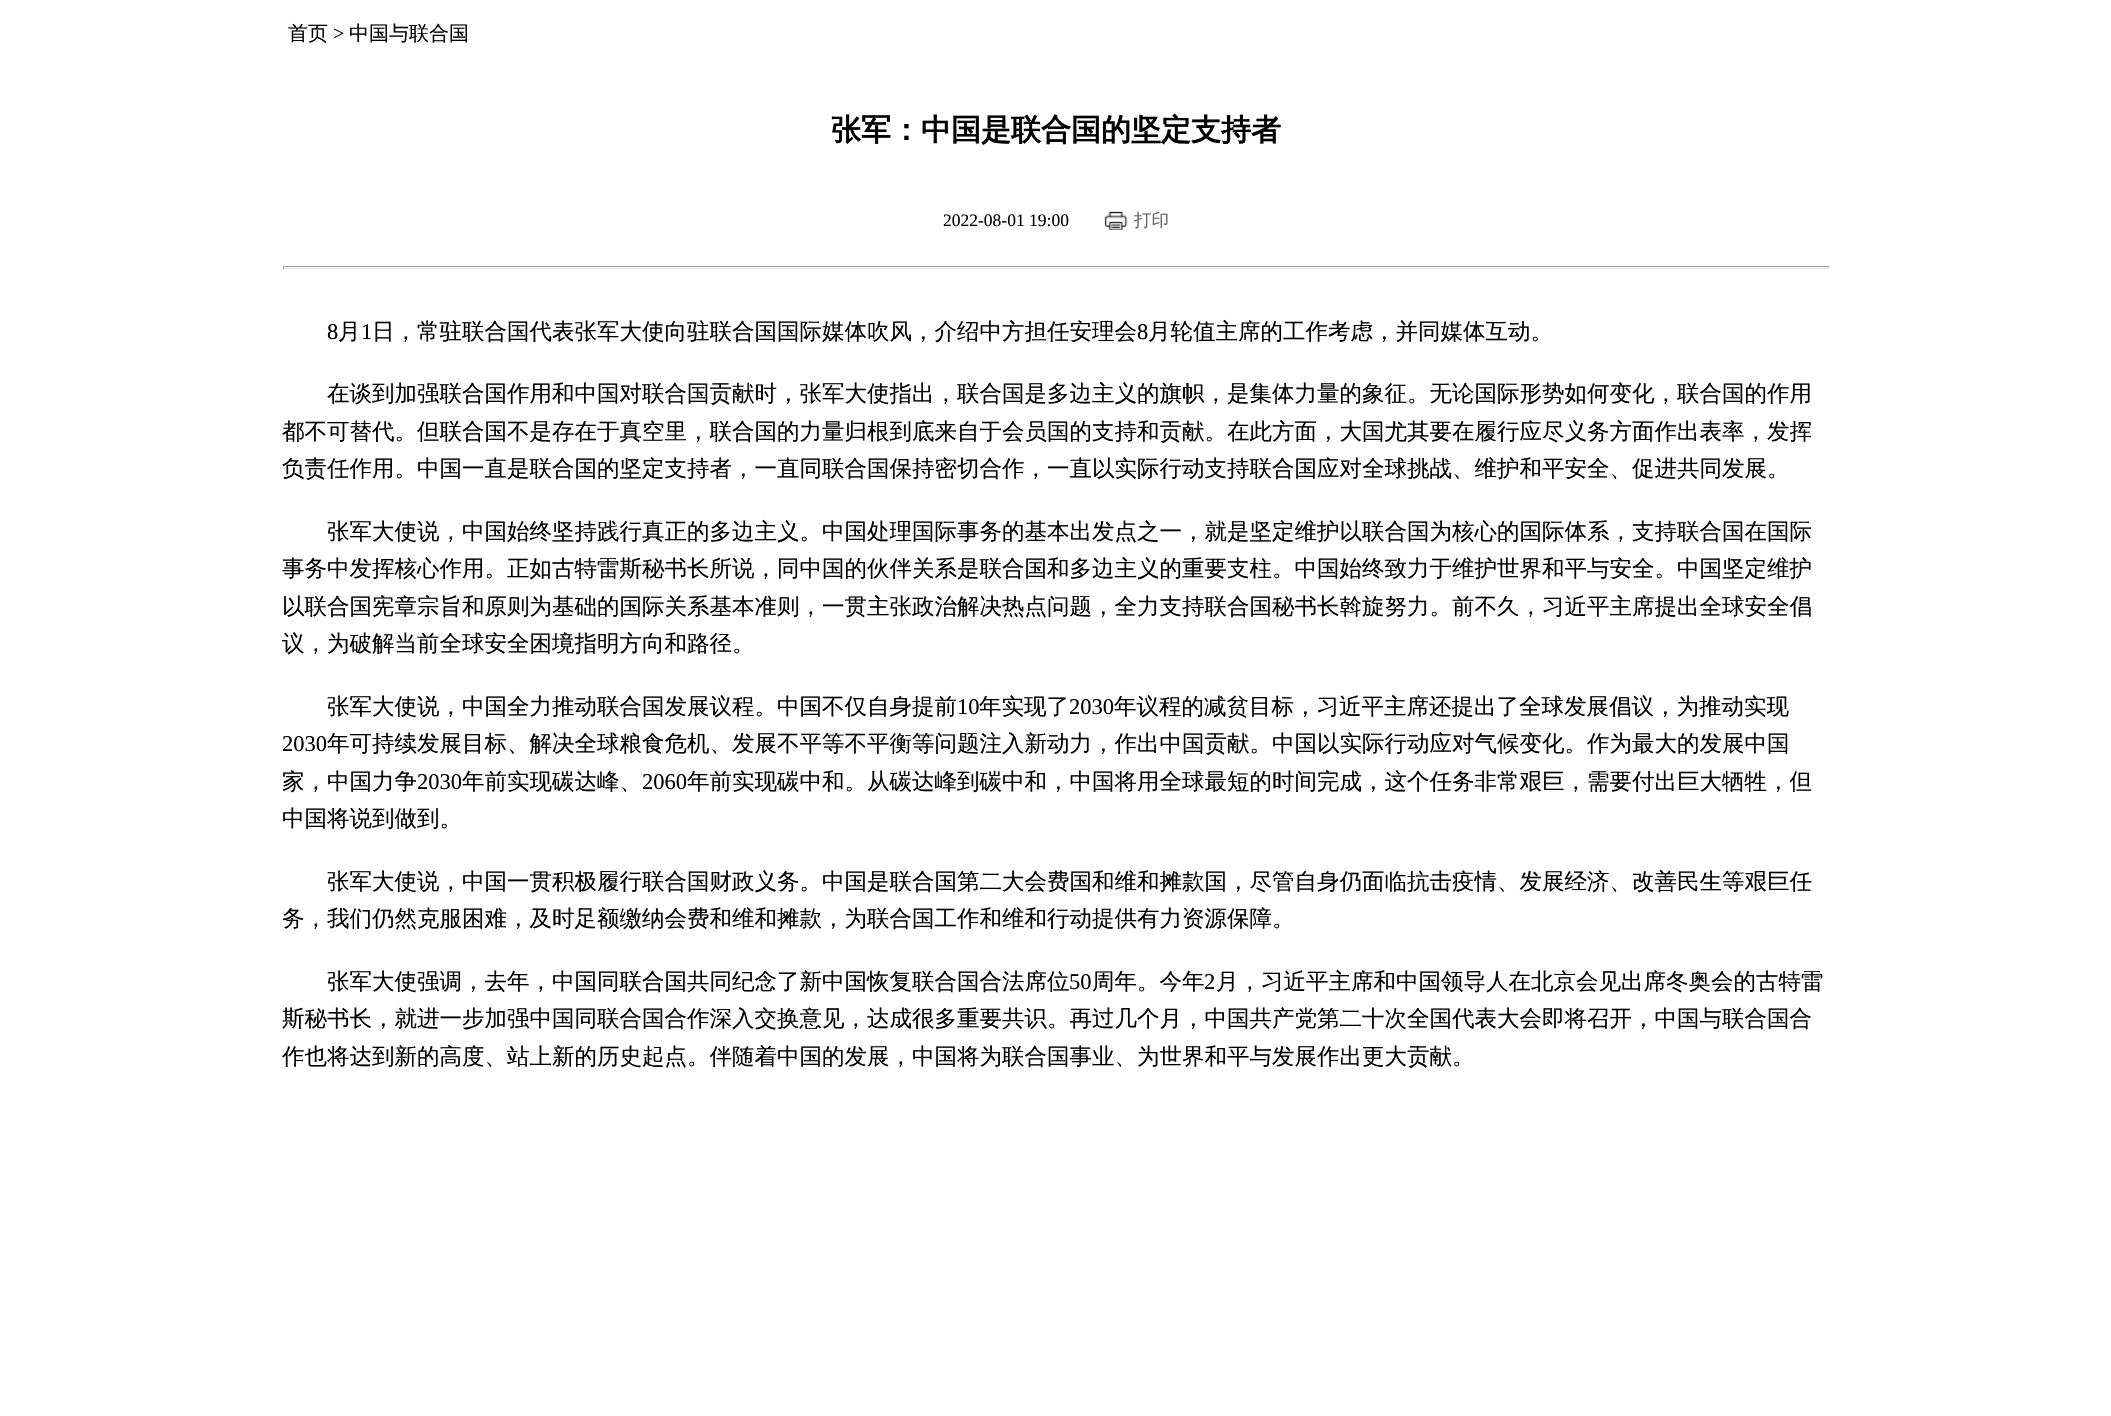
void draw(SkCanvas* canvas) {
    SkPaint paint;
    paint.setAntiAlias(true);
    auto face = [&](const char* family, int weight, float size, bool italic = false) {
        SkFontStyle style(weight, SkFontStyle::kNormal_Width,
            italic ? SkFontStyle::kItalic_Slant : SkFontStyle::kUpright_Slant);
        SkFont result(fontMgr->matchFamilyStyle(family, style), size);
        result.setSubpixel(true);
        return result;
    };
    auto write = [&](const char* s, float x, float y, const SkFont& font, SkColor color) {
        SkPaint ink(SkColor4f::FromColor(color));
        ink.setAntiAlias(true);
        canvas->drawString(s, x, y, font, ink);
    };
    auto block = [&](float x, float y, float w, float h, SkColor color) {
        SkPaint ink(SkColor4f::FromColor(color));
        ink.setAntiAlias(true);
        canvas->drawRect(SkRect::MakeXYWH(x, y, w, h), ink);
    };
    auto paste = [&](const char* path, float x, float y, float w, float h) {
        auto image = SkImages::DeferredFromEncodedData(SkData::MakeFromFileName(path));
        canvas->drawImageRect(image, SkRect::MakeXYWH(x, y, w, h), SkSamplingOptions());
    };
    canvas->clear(SK_ColorWHITE);
    auto kFont1 = face("WenQuanYi Zen Hei", 500, 20);
    write("首页", 288, 40, kFont1, SK_ColorBLACK);
    auto kFont2 = face("Liberation Serif", 400, 20);
    write(">", 333, 40, kFont2, SK_ColorBLACK);
    write("中国与联合国", 349, 40, kFont1, SK_ColorBLACK);
    auto kFont3 = face("WenQuanYi Zen Hei", 700, 30);
    write("张军：中国是联合国的坚定支持者", 831, 140, kFont3, SK_ColorBLACK);
    auto kFont4 = face("Liberation Serif", 400, 17.5f);
    write("2022-08-01 19:00", 943, 226, kFont4, SK_ColorBLACK);
    paste("pic1.png", 1104, 211, 24, 19);
    auto kFont5 = face("WenQuanYi Zen Hei", 500, 17.5f);
    write("打印", 1134, 226, kFont5, SkColorSetRGB(102, 102, 102));
    block(283, 266, 1547, 1, SkColorSetRGB(153, 153, 153));
    block(1829, 266, 1, 3, SkColorSetRGB(229, 229, 229));
    block(283, 268, 1547, 1, SkColorSetRGB(229, 229, 229));
    block(283, 266, 1, 3, SkColorSetRGB(153, 153, 153));
    auto kFont6 = face("Liberation Serif", 400, 22.5f);
    write("8", 327, 339, kFont6, SK_ColorBLACK);
    auto kFont7 = face("WenQuanYi Zen Hei", 500, 22.5f);
    write("月", 338, 339, kFont7, SK_ColorBLACK);
    write("1", 361, 339, kFont6, SK_ColorBLACK);
    write("日，常驻联合国代表张军大使向驻联合国国际媒体吹风，介绍中方担任安理会", 372, 339, kFont7, SK_ColorBLACK);
    write("8", 1137, 339, kFont6, SK_ColorBLACK);
    write("月轮值主席的工作考虑，并同媒体互动。", 1148, 339, kFont7, SK_ColorBLACK);
    write("在谈到加强联合国作用和中国对联合国贡献时，张军大使指出，联合国是多边主义的旗帜，是集体力量的象征。无论国际形势如何变化，联合国的作用", 327, 401, kFont7, SK_ColorBLACK);
    write("都不可替代。但联合国不是存在于真空里，联合国的力量归根到底来自于会员国的支持和贡献。在此方面，大国尤其要在履行应尽义务方面作出表率，发挥", 282, 439, kFont7, SK_ColorBLACK);
    write("负责任作用。中国一直是联合国的坚定支持者，一直同联合国保持密切合作，一直以实际行动支持联合国应对全球挑战、维护和平安全、促进共同发展。", 282, 476, kFont7, SK_ColorBLACK);
    write("张军大使说，中国始终坚持践行真正的多边主义。中国处理国际事务的基本出发点之一，就是坚定维护以联合国为核心的国际体系，支持联合国在国际", 327, 539, kFont7, SK_ColorBLACK);
    write("事务中发挥核心作用。正如古特雷斯秘书长所说，同中国的伙伴关系是联合国和多边主义的重要支柱。中国始终致力于维护世界和平与安全。中国坚定维护", 282, 576, kFont7, SK_ColorBLACK);
    write("以联合国宪章宗旨和原则为基础的国际关系基本准则，一贯主张政治解决热点问题，全力支持联合国秘书长斡旋努力。前不久，习近平主席提出全球安全倡", 282, 614, kFont7, SK_ColorBLACK);
    write("议，为破解当前全球安全困境指明方向和路径。", 282, 651, kFont7, SK_ColorBLACK);
    write("张军大使说，中国全力推动联合国发展议程。中国不仅自身提前", 327, 714, kFont7, SK_ColorBLACK);
    write("10", 957, 714, kFont6, SK_ColorBLACK);
    write("年实现了", 979, 714, kFont7, SK_ColorBLACK);
    write("2030", 1069, 714, kFont6, SK_ColorBLACK);
    write("年议程的减贫目标，习近平主席还提出了全球发展倡议，为推动实现", 1114, 714, kFont7, SK_ColorBLACK);
    write("2030", 282, 751, kFont6, SK_ColorBLACK);
    write("年可持续发展目标、解决全球粮食危机、发展不平等不平衡等问题注入新动力，作出中国贡献。中国以实际行动应对气候变化。作为最大的发展中国", 327, 751, kFont7, SK_ColorBLACK);
    write("家，中国力争", 282, 789, kFont7, SK_ColorBLACK);
    write("2030", 417, 789, kFont6, SK_ColorBLACK);
    write("年前实现碳达峰、", 462, 789, kFont7, SK_ColorBLACK);
    write("2060", 642, 789, kFont6, SK_ColorBLACK);
    write("年前实现碳中和。从碳达峰到碳中和，中国将用全球最短的时间完成，这个任务非常艰巨，需要付出巨大牺牲，但", 687, 789, kFont7, SK_ColorBLACK);
    write("中国将说到做到。", 282, 826, kFont7, SK_ColorBLACK);
    write("张军大使说，中国一贯积极履行联合国财政义务。中国是联合国第二大会费国和维和摊款国，尽管自身仍面临抗击疫情、发展经济、改善民生等艰巨任", 327, 889, kFont7, SK_ColorBLACK);
    write("务，我们仍然克服困难，及时足额缴纳会费和维和摊款，为联合国工作和维和行动提供有力资源保障。", 282, 926, kFont7, SK_ColorBLACK);
    write("张军大使强调，去年，中国同联合国共同纪念了新中国恢复联合国合法席位", 327, 989, kFont7, SK_ColorBLACK);
    write("50", 1069, 989, kFont6, SK_ColorBLACK);
    write("周年。今年", 1092, 989, kFont7, SK_ColorBLACK);
    write("2", 1204, 989, kFont6, SK_ColorBLACK);
    write("月，习近平主席和中国领导人在北京会见出席冬奥会的古特雷", 1216, 989, kFont7, SK_ColorBLACK);
    write("斯秘书长，就进一步加强中国同联合国合作深入交换意见，达成很多重要共识。再过几个月，中国共产党第二十次全国代表大会即将召开，中国与联合国合", 282, 1026, kFont7, SK_ColorBLACK);
    write("作也将达到新的高度、站上新的历史起点。伴随着中国的发展，中国将为联合国事业、为世界和平与发展作出更大贡献。", 282, 1064, kFont7, SK_ColorBLACK);
}
